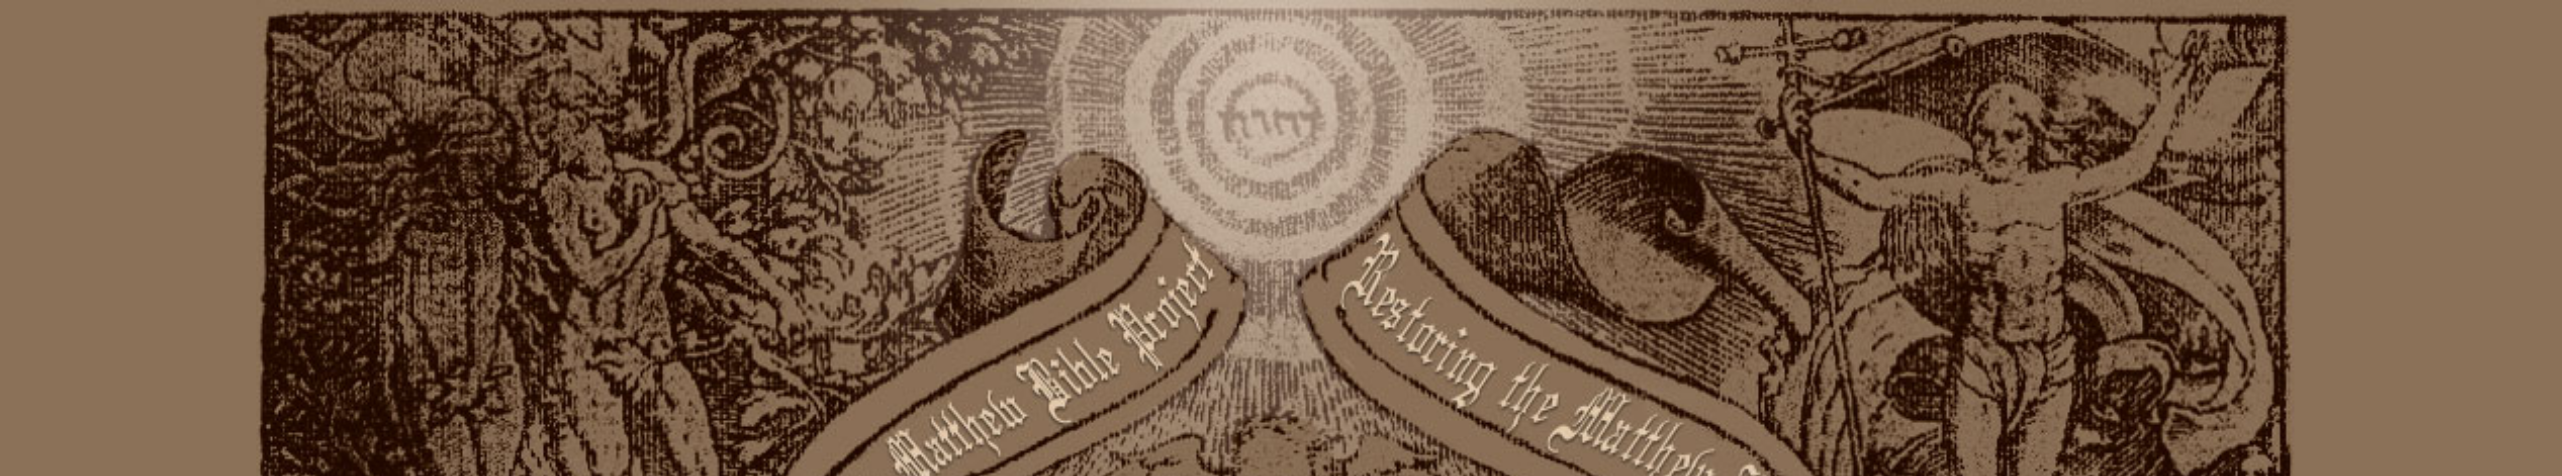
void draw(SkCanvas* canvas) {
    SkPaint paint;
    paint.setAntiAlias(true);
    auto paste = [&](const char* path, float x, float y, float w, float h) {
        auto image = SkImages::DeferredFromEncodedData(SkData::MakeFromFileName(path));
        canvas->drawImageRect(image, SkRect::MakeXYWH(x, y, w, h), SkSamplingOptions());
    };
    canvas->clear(SkColorSetRGB(139, 113, 88));
    paste("pic1.png", 256, 0, 2039, 476);
}
